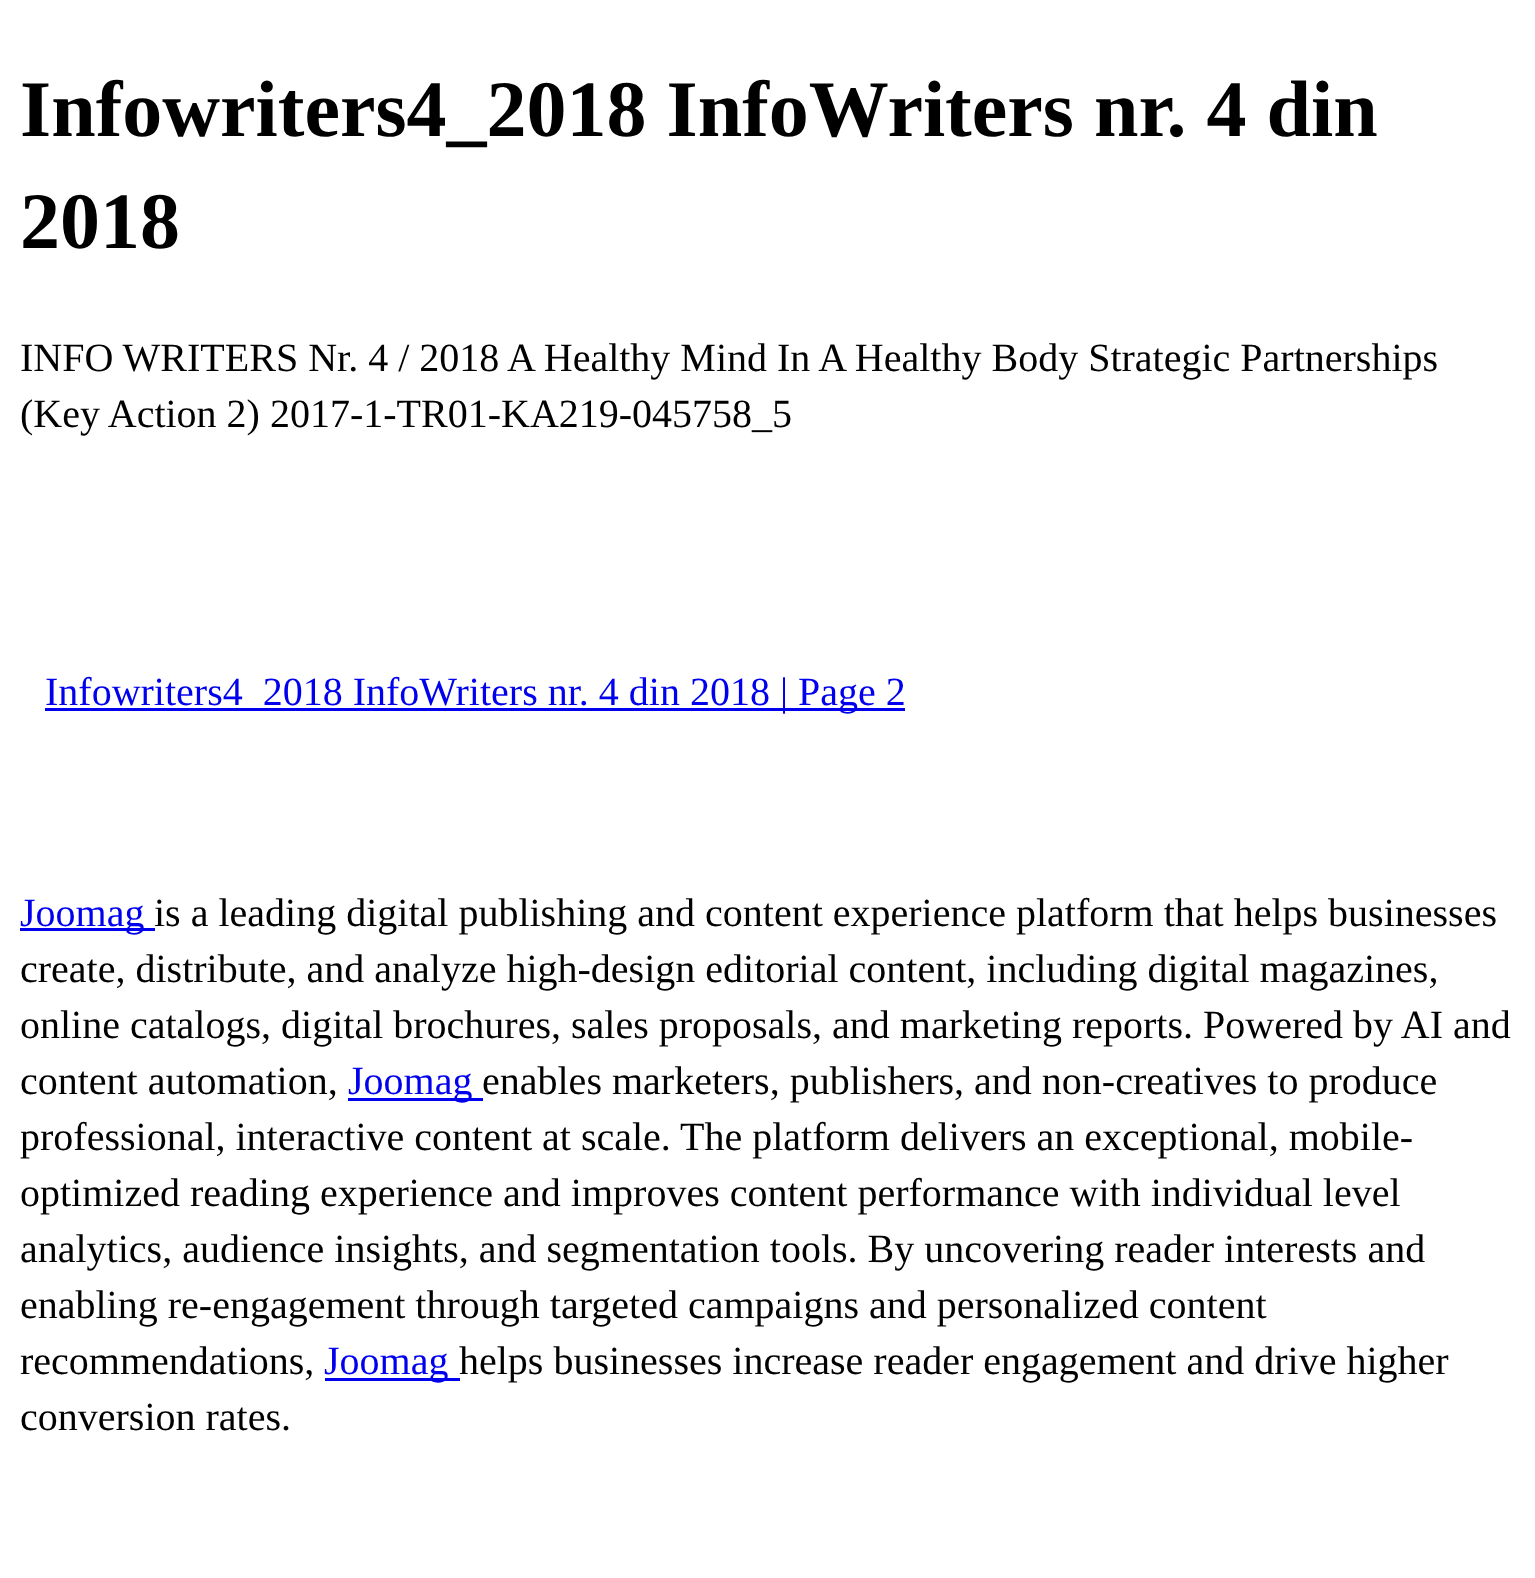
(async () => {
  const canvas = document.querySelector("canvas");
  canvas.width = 1535;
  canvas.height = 1578;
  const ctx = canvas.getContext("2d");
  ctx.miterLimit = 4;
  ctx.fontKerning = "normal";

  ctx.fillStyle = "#ffffff";
  ctx.fillRect(0, 0, 1535, 1578);
  for (const [x, y, w, h, color] of [
    [45, 708, 860, 3, "#0000ee"],
    [20, 928, 135, 3, "#0000ee"],
    [348, 1098, 135, 3, "#0000ee"],
    [325, 1378, 135, 3, "#0000ee"],
  ]) {
    ctx.fillStyle = color;
    ctx.fillRect(x, y, w, h);
  }
  ctx.font = "bold 80px Liberation Serif";
  ctx.fillStyle = "#000000";
  ctx.fillText("Infowriters4_2018 InfoWriters nr. 4 din", 20, 136);
  ctx.fillText("2018", 20, 248);
  ctx.font = "40px Liberation Serif";
  ctx.fillText("INFO WRITERS Nr. 4 / 2018 A Healthy Mind In A Healthy Body Strategic Partnerships", 20, 371);
  ctx.fillText("(Key Action 2) 2017-1-TR01-KA219-045758_5", 20, 427);
  ctx.fillStyle = "#0000ee";
  ctx.fillText("Infowriters4_2018 InfoWriters nr. 4 din 2018 | Page 2", 45, 705);
  ctx.fillText("Joomag", 20, 926);
  ctx.fillStyle = "#000000";
  for (const [text, x, y] of [
    ["is a leading digital publishing and content experience platform that helps businesses", 154, 926],
    ["create, distribute, and analyze high-design editorial content, including digital magazines,", 20, 982],
    ["online catalogs, digital brochures, sales proposals, and marketing reports. Powered by AI and", 20, 1038],
    ["content automation,", 20, 1094],
  ]) {
    ctx.fillText(text, x, y);
  }
  ctx.fillStyle = "#0000ee";
  ctx.fillText("Joomag", 348, 1094);
  ctx.fillStyle = "#000000";
  for (const [text, x, y] of [
    ["enables marketers, publishers, and non-creatives to produce", 482, 1094],
    ["professional, interactive content at scale.", 20, 1150],
    ["The platform delivers an exceptional, mobile-", 680, 1150],
    ["optimized reading experience and improves content performance with individual level", 20, 1206],
    ["analytics, audience insights, and segmentation tools. By uncovering reader interests and", 20, 1262],
    ["enabling re-engagement through targeted campaigns and personalized content", 20, 1318],
    ["recommendations,", 20, 1374],
  ]) {
    ctx.fillText(text, x, y);
  }
  ctx.fillStyle = "#0000ee";
  ctx.fillText("Joomag", 324, 1374);
  ctx.fillStyle = "#000000";
  ctx.fillText("helps businesses increase reader engagement and drive higher", 459, 1374);
  ctx.fillText("conversion rates.", 20, 1430);
})();
